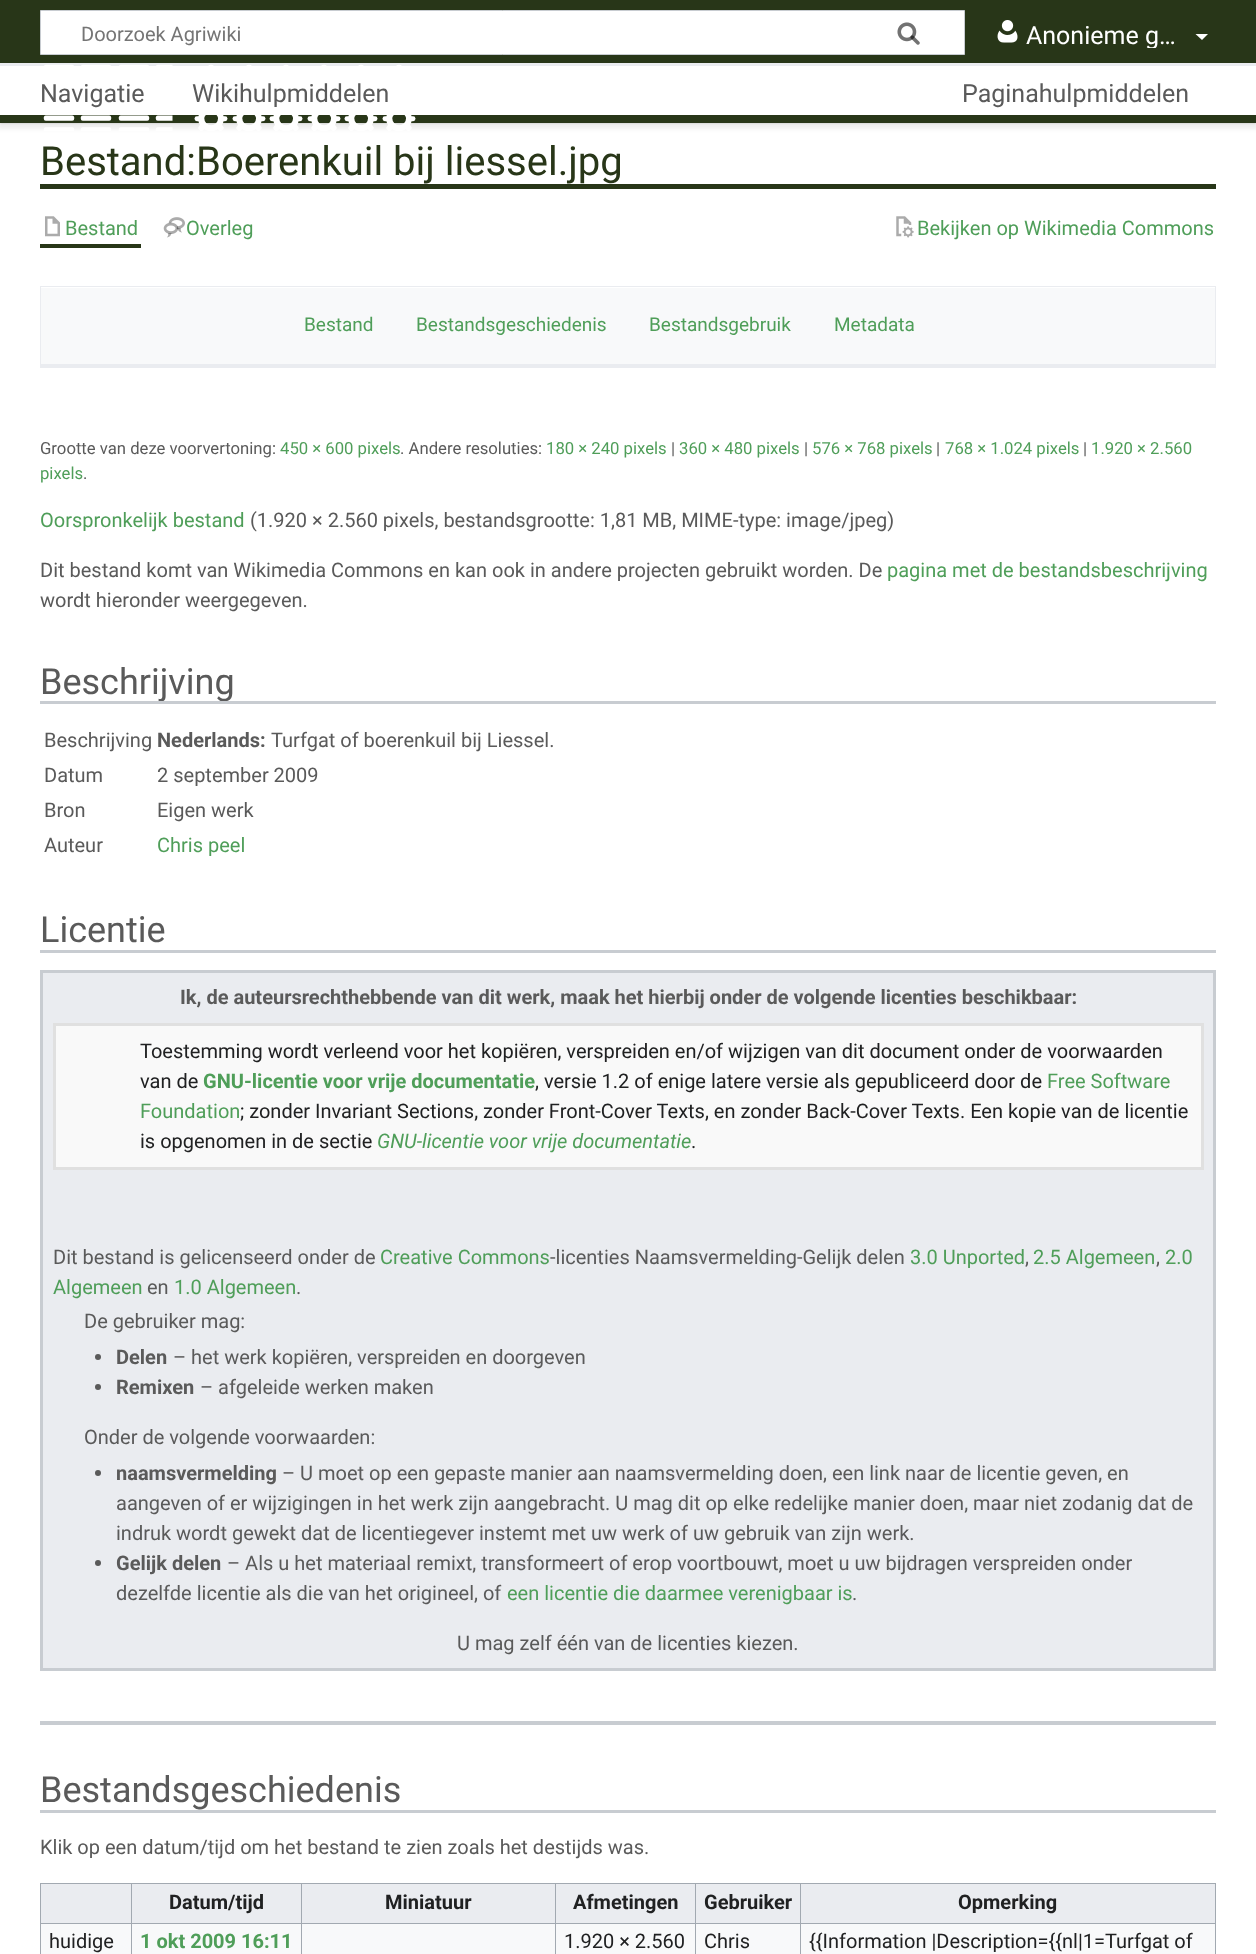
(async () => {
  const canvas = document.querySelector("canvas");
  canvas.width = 1256;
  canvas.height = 1954;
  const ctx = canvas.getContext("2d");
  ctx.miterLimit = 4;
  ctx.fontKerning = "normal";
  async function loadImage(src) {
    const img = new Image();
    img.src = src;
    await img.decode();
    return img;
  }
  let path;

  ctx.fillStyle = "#ffffff";
  ctx.fillRect(0, 0, 1256, 1954);
  ctx.fillStyle = "rgba(0, 0, 0, 0.2)";
  ctx.filter = "blur(1px)";
  ctx.beginPath();
  ctx.rect(0, 63, 1256, 60);
  ctx.fill();
  ctx.filter = "none";
  ctx.fillStyle = "rgba(0, 0, 0, 0.07)";
  ctx.filter = "blur(2px)";
  ctx.beginPath();
  ctx.rect(-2, 64, 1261, 65);
  ctx.fill();
  ctx.filter = "none";
  ctx.fillStyle = "#283618";
  ctx.fillRect(0, 0, 1256, 63);
  ctx.fillStyle = "#ffffff";
  ctx.beginPath();
  ctx.rect(40.5, 10.5, 924, 44);
  ctx.fill();
  ctx.strokeStyle = "#c8ccd1";
  ctx.stroke();
  ctx.drawImage(await loadImage("img/1.png"), 897, 22, 23, 23);
  ctx.drawImage(await loadImage("img/2.png"), 897, 22, 23, 23);
  ctx.drawImage(await loadImage("img/3.png"), 997, 20, 21, 23);
  path = new Path2D("M1208 34L1202 40L1195.5 34Z");
  ctx.fill(path);
  for (const [x, y, w, h, color] of [
    [0, 66, 1256, 49, "#ffffff"],
    [0, 63, 1256, 3, "#eaecf0"],
    [0, 115, 1256, 8, "#283618"],
  ]) {
    ctx.fillStyle = color;
    ctx.fillRect(x, y, w, h);
  }
  ctx.drawImage(await loadImage("img/4.png"), 43, 64, 130, 67);
  ctx.drawImage(await loadImage("img/5.png"), 194, 64, 222, 67);
  ctx.fillRect(40, 184, 1176, 5);
  ctx.fillRect(40, 244, 101, 4);
  ctx.drawImage(await loadImage("img/6.png"), 45, 216, 15, 21);
  ctx.drawImage(await loadImage("img/7.png"), 163, 217, 22, 21);
  ctx.drawImage(await loadImage("img/8.png"), 896, 216, 18, 22);
  for (const [x, y, w, h, color] of [
    [41, 288, 1174, 76, "#f8f9fa"],
    [40, 286, 1176, 1, "#eaecf0"],
    [1215, 286, 1, 82, "#eaecf0"],
    [40, 364, 1176, 4, "#eaecf0"],
    [40, 286, 1, 82, "#eaecf0"],
    [40, 950, 1176, 3, "#c8ccd1"],
  ]) {
    ctx.fillStyle = color;
    ctx.fillRect(x, y, w, h);
  }
  ctx.fillStyle = "#eaecf0";
  ctx.beginPath();
  ctx.rect(41.5, 971.5, 1173, 698);
  ctx.fill();
  ctx.lineWidth = 3;
  ctx.stroke();
  ctx.fillStyle = "#f9f9f9";
  ctx.beginPath();
  ctx.rect(54.5, 1024.5, 1148, 144);
  ctx.fill();
  ctx.strokeStyle = "#e0e0e0";
  ctx.stroke();
  ctx.fillStyle = "#5a5a5a";
  ctx.beginPath();
  ctx.arc(98, 1357, 3, 0, Math.PI * 2);
  ctx.fill();
  ctx.beginPath();
  ctx.arc(98, 1387, 3, 0, Math.PI * 2);
  ctx.fill();
  ctx.beginPath();
  ctx.arc(98, 1473, 3, 0, Math.PI * 2);
  ctx.fill();
  ctx.beginPath();
  ctx.arc(98, 1563, 3, 0, Math.PI * 2);
  ctx.fill();
  for (const [x, y, w, h, color] of [
    [40, 1721, 1176, 4, "#c8ccd1"],
    [40, 1810, 1176, 3, "#c8ccd1"],
    [41, 1924, 1174, 30, "#f8f9fa"],
    [40, 1883, 1176, 1, "#a2a9b1"],
    [1215, 1883, 1, 71, "#a2a9b1"],
    [40, 1883, 1, 71, "#a2a9b1"],
    [41, 1884, 90, 39, "#eaecf0"],
    [132, 1884, 169, 39, "#eaecf0"],
    [800, 1923, 416, 1, "#a2a9b1"],
    [800, 1923, 1, 31, "#a2a9b1"],
    [695, 1923, 106, 1, "#a2a9b1"],
    [695, 1923, 1, 31, "#a2a9b1"],
    [555, 1923, 141, 1, "#a2a9b1"],
    [555, 1923, 1, 31, "#a2a9b1"],
    [301, 1923, 255, 1, "#a2a9b1"],
    [301, 1923, 1, 31, "#a2a9b1"],
    [131, 1923, 172, 1, "#a2a9b1"],
    [131, 1923, 1, 31, "#a2a9b1"],
    [40, 1923, 93, 1, "#a2a9b1"],
    [131, 1883, 1, 41, "#a2a9b1"],
    [302, 1884, 253, 39, "#eaecf0"],
    [301, 1883, 1, 41, "#a2a9b1"],
    [556, 1884, 139, 39, "#eaecf0"],
    [555, 1883, 1, 41, "#a2a9b1"],
    [696, 1884, 104, 39, "#eaecf0"],
    [695, 1883, 1, 41, "#a2a9b1"],
    [801, 1884, 414, 39, "#eaecf0"],
    [800, 1883, 1, 41, "#a2a9b1"],
  ]) {
    ctx.fillStyle = color;
    ctx.fillRect(x, y, w, h);
  }
  ctx.font = "20px Roboto";
  ctx.fillStyle = "#757575";
  ctx.fillText("Doorzoek Agriwiki", 81, 41);
  ctx.save();
  ctx.beginPath();
  ctx.rect(1026, 23, 163, 25);
  ctx.clip();
  ctx.font = "25px Roboto";
  ctx.fillStyle = "#ffffff";
  ctx.fillText("Anonieme g…", 1026, 44);
  ctx.restore();
  ctx.font = "25px Roboto";
  ctx.fillStyle = "#5a5a5a";
  for (const [text, x, y] of [
    ["Navigatie", 40, 102],
    ["Wikihulpmiddelen", 192, 102],
    ["Paginahulpmiddelen", 962, 102],
  ]) {
    ctx.fillText(text, x, y);
  }
  ctx.font = "40px Roboto";
  ctx.fillStyle = "#283618";
  ctx.fillText("Bestand:Boerenkuil bij liessel.jpg", 40, 175);
  ctx.font = "20px Roboto";
  ctx.fillStyle = "#4f9e59";
  for (const [text, x, y] of [
    ["Bestand", 65, 235],
    ["Overleg", 186, 235],
    ["Bekijken op Wikimedia Commons", 917, 235],
  ]) {
    ctx.fillText(text, x, y);
  }
  ctx.font = "19px Roboto";
  for (const [text, x, y] of [
    ["Bestand", 304, 331],
    ["Bestandsgeschiedenis", 416, 331],
    ["Bestandsgebruik", 649, 331],
    ["Metadata", 834, 331],
  ]) {
    ctx.fillText(text, x, y);
  }
  ctx.font = "16.7px Roboto";
  ctx.fillStyle = "#5a5a5a";
  ctx.fillText("Grootte van deze voorvertoning:", 40, 454);
  ctx.fillStyle = "#4f9e59";
  ctx.fillText("450 × 600 pixels", 280, 454);
  ctx.fillStyle = "#5a5a5a";
  ctx.fillText(". Andere resoluties:", 400, 454);
  ctx.fillStyle = "#4f9e59";
  ctx.fillText("180 × 240 pixels", 546, 454);
  ctx.fillStyle = "#5a5a5a";
  ctx.fillText("|", 671, 454);
  ctx.fillStyle = "#4f9e59";
  ctx.fillText("360 × 480 pixels", 679, 454);
  ctx.fillStyle = "#5a5a5a";
  ctx.fillText("|", 804, 454);
  ctx.fillStyle = "#4f9e59";
  ctx.fillText("576 × 768 pixels", 812, 454);
  ctx.fillStyle = "#5a5a5a";
  ctx.fillText("|", 936, 454);
  ctx.fillStyle = "#4f9e59";
  ctx.fillText("768 × 1.024 pixels", 945, 454);
  ctx.fillStyle = "#5a5a5a";
  ctx.fillText("|", 1083, 454);
  ctx.fillStyle = "#4f9e59";
  ctx.fillText("1.920 × 2.560", 1091, 454);
  ctx.fillText("pixels", 40, 479);
  ctx.fillStyle = "#5a5a5a";
  ctx.fillText(".", 83, 479);
  ctx.font = "20px Roboto";
  ctx.fillStyle = "#4f9e59";
  ctx.fillText("Oorspronkelijk bestand", 40, 527);
  ctx.fillStyle = "#5a5a5a";
  ctx.fillText("(1.920 × 2.560 pixels, bestandsgrootte: 1,81 MB, MIME-type: image/jpeg)", 250, 527);
  ctx.fillText("Dit bestand komt van Wikimedia Commons en kan ook in andere projecten gebruikt worden. De", 40, 577);
  ctx.fillStyle = "#4f9e59";
  ctx.fillText("pagina met de bestandsbeschrijving", 887, 577);
  ctx.fillStyle = "#5a5a5a";
  ctx.fillText("wordt hieronder weergegeven.", 40, 607);
  ctx.font = "36px Roboto";
  ctx.fillText("Beschrijving", 40, 694);
  ctx.fillStyle = "#c8ccd1";
  ctx.fillRect(40, 701, 1176, 3);
  ctx.font = "20px Roboto";
  ctx.fillStyle = "#5a5a5a";
  ctx.fillText("Beschrijving", 44, 747);
  ctx.font = "bold 20px Roboto";
  ctx.fillText("Nederlands:", 157, 747);
  ctx.font = "20px Roboto";
  for (const [text, x, y] of [
    ["Turfgat of boerenkuil bij Liessel.", 271, 747],
    ["Datum", 44, 782],
    ["2 september 2009", 157, 782],
    ["Bron", 44, 817],
    ["Eigen werk", 157, 817],
    ["Auteur", 44, 852],
  ]) {
    ctx.fillText(text, x, y);
  }
  ctx.fillStyle = "#4f9e59";
  ctx.fillText("Chris peel", 157, 852);
  ctx.font = "36px Roboto";
  ctx.fillStyle = "#5a5a5a";
  ctx.fillText("Licentie", 40, 942);
  ctx.font = "bold 20px Roboto";
  ctx.fillText("Ik, de auteursrechthebbende van dit werk, maak het hierbij onder de volgende licenties beschikbaar:", 180, 1004);
  ctx.font = "20px Roboto";
  ctx.fillStyle = "#202122";
  ctx.fillText("Toestemming wordt verleend voor het kopiëren, verspreiden en/of wijzigen van dit document onder de voorwaarden", 140, 1058);
  ctx.fillText("van de", 140, 1088);
  ctx.font = "bold 20px Roboto";
  ctx.fillStyle = "#4f9e59";
  ctx.fillText("GNU-licentie voor vrije documentatie", 203, 1088);
  ctx.font = "20px Roboto";
  ctx.fillStyle = "#202122";
  ctx.fillText(", versie 1.2 of enige latere versie als gepubliceerd door de", 535, 1088);
  ctx.fillStyle = "#4f9e59";
  ctx.fillText("Free Software", 1047, 1088);
  ctx.fillText("Foundation", 140, 1118);
  ctx.fillStyle = "#202122";
  ctx.fillText("; zonder Invariant Sections, zonder Front-Cover Texts, en zonder Back-Cover Texts. Een kopie van de licentie", 240, 1118);
  ctx.fillText("is opgenomen in de sectie", 140, 1148);
  ctx.font = "italic 20px Roboto";
  ctx.fillStyle = "#4f9e59";
  ctx.fillText("GNU-licentie voor vrije documentatie", 377, 1148);
  ctx.font = "20px Roboto";
  ctx.fillStyle = "#202122";
  ctx.fillText(".", 691, 1148);
  ctx.fillStyle = "#5a5a5a";
  ctx.fillText("Dit bestand is gelicenseerd onder de", 53, 1264);
  ctx.fillStyle = "#4f9e59";
  ctx.fillText("Creative Commons", 380, 1264);
  ctx.fillStyle = "#5a5a5a";
  ctx.fillText("-licenties Naamsvermelding-Gelijk delen", 550, 1264);
  ctx.fillStyle = "#4f9e59";
  ctx.fillText("3.0 Unported", 910, 1264);
  ctx.fillStyle = "#5a5a5a";
  ctx.fillText(",", 1025, 1264);
  ctx.fillStyle = "#4f9e59";
  ctx.fillText("2.5 Algemeen", 1033, 1264);
  ctx.fillStyle = "#5a5a5a";
  ctx.fillText(",", 1156, 1264);
  ctx.fillStyle = "#4f9e59";
  ctx.fillText("2.0", 1165, 1264);
  ctx.fillText("Algemeen", 53, 1294);
  ctx.fillStyle = "#5a5a5a";
  ctx.fillText("en", 147, 1294);
  ctx.fillStyle = "#4f9e59";
  ctx.fillText("1.0 Algemeen", 174, 1294);
  ctx.fillStyle = "#5a5a5a";
  ctx.fillText(".", 296, 1294);
  ctx.fillText("De gebruiker mag:", 84, 1328);
  ctx.font = "bold 20px Roboto";
  ctx.fillText("Delen", 116, 1364);
  ctx.font = "20px Roboto";
  ctx.fillText("– het werk kopiëren, verspreiden en doorgeven", 173, 1364);
  ctx.font = "bold 20px Roboto";
  ctx.fillText("Remixen", 116, 1394);
  ctx.font = "20px Roboto";
  ctx.fillText("– afgeleide werken maken", 200, 1394);
  ctx.fillText("Onder de volgende voorwaarden:", 84, 1444);
  ctx.font = "bold 20px Roboto";
  ctx.fillText("naamsvermelding", 116, 1480);
  ctx.font = "20px Roboto";
  for (const [text, x, y] of [
    ["– U moet op een gepaste manier aan naamsvermelding doen, een link naar de licentie geven, en", 282, 1480],
    ["aangeven of er wijzigingen in het werk zijn aangebracht. U mag dit op elke redelijke manier doen, maar niet zodanig dat de", 116, 1510],
    ["indruk wordt gewekt dat de licentiegever instemt met uw werk of uw gebruik van zijn werk.", 116, 1540],
  ]) {
    ctx.fillText(text, x, y);
  }
  ctx.font = "bold 20px Roboto";
  ctx.fillText("Gelijk delen", 116, 1570);
  ctx.font = "20px Roboto";
  ctx.fillText("– Als u het materiaal remixt, transformeert of erop voortbouwt, moet u uw bijdragen verspreiden onder", 227, 1570);
  ctx.fillText("dezelfde licentie als die van het origineel, of", 116, 1600);
  ctx.fillStyle = "#4f9e59";
  ctx.fillText("een licentie die daarmee verenigbaar is", 507, 1600);
  ctx.fillStyle = "#5a5a5a";
  ctx.fillText(".", 852, 1600);
  ctx.fillText("U mag zelf één van de licenties kiezen.", 457, 1650);
  ctx.font = "36px Roboto";
  ctx.fillText("Bestandsgeschiedenis", 40, 1802);
  ctx.font = "20px Roboto";
  ctx.fillText("Klik op een datum/tijd om het bestand te zien zoals het destijds was.", 40, 1854);
  ctx.font = "bold 20px Roboto";
  ctx.fillStyle = "#202122";
  for (const [text, x, y] of [
    ["Datum/tijd", 169, 1909],
    ["Miniatuur", 385, 1909],
    ["Afmetingen", 573, 1909],
    ["Gebruiker", 704, 1909],
    ["Opmerking", 958, 1909],
  ]) {
    ctx.fillText(text, x, y);
  }
  ctx.font = "20px Roboto";
  ctx.fillText("huidige", 49, 1948);
  ctx.font = "bold 20px Roboto";
  ctx.fillStyle = "#4f9e59";
  ctx.fillText("1 okt 2009 16:11", 140, 1948);
  ctx.font = "20px Roboto";
  ctx.fillStyle = "#202122";
  for (const [text, x, y] of [
    ["1.920 × 2.560", 564, 1948],
    ["Chris", 704, 1948],
    ["{{Information |Description={{nl|1=Turfgat of", 809, 1948],
  ]) {
    ctx.fillText(text, x, y);
  }
})();
